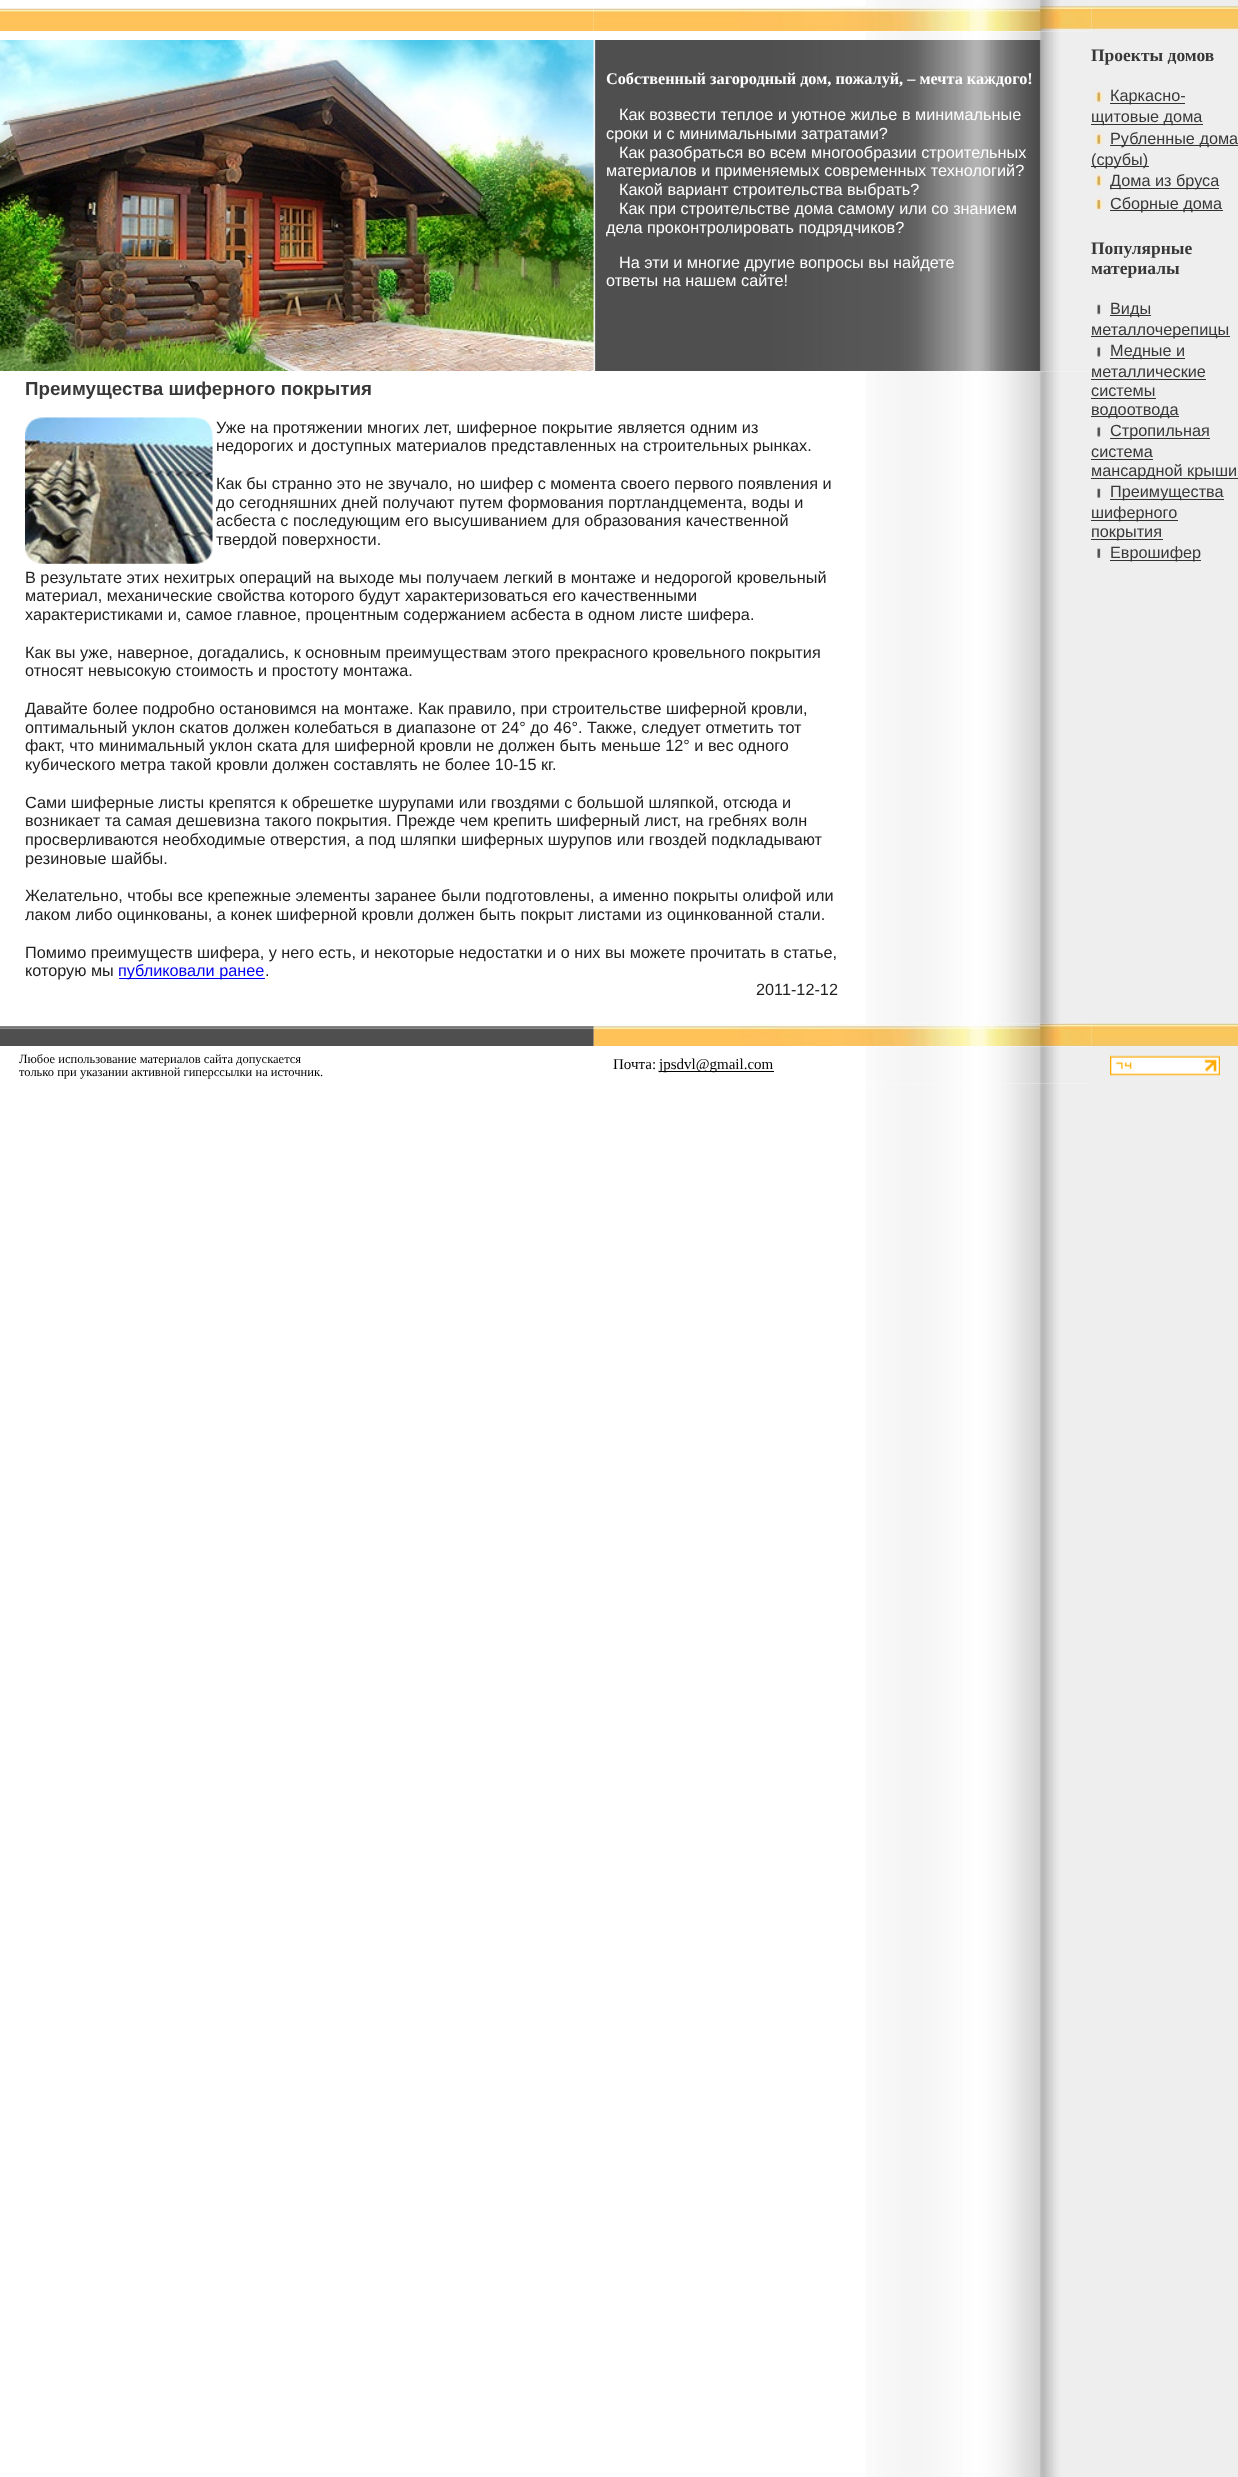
(async () => {
  const canvas = document.querySelector("canvas");
  canvas.width = 1238;
  canvas.height = 2477;
  const ctx = canvas.getContext("2d");
  ctx.miterLimit = 4;
  ctx.fontKerning = "normal";
  async function loadImage(src) {
    const img = new Image();
    img.src = src;
    await img.decode();
    return img;
  }

  ctx.fillStyle = "#ffffff";
  ctx.fillRect(0, 0, 1238, 2477);
  ctx.drawImage(await loadImage("img/1.png"), 866, 0, 372, 2477);
  ctx.drawImage(await loadImage("img/2.png"), 866, 0, 225, 6);
  ctx.drawImage(await loadImage("img/3.png"), 0, 8, 594, 23);
  ctx.drawImage(await loadImage("img/4.png"), 593, 6, 499, 26);
  ctx.fillStyle = "#eeeeee";
  ctx.fillRect(1091, 6, 1, 24);
  ctx.drawImage(await loadImage("img/5.png"), 1091, 6, 147, 25);
  ctx.fillStyle = "#ffffff";
  ctx.fillRect(593, 31, 1, 1);
  ctx.fillRect(594, 31, 497, 9);
  ctx.drawImage(await loadImage("img/6.png"), 866, 31, 225, 9);
  ctx.drawImage(await loadImage("img/7.png"), 0, 40, 594, 331);
  ctx.drawImage(await loadImage("img/8.png"), 593, 40, 451, 331);
  ctx.drawImage(await loadImage("img/9.png"), 1091, 87, 13, 19);
  ctx.fillStyle = "#333333";
  ctx.fillRect(1110, 103, 75, 1);
  ctx.fillRect(1091, 124, 112, 1);
  ctx.drawImage(await loadImage("img/10.png"), 1091, 129, 13, 20);
  ctx.fillRect(1110, 145, 128, 1);
  ctx.fillRect(1091, 166, 58, 1);
  ctx.drawImage(await loadImage("img/11.png"), 1091, 170, 13, 20);
  ctx.fillRect(1110, 188, 109, 1);
  ctx.drawImage(await loadImage("img/12.png"), 1091, 194, 13, 16);
  ctx.fillRect(1110, 210, 113, 1);
  ctx.drawImage(await loadImage("img/13.png"), 1097, 304, 4, 11);
  ctx.fillRect(1110, 315, 41, 1);
  ctx.fillRect(1091, 336, 139, 1);
  ctx.drawImage(await loadImage("img/14.png"), 1097, 346, 4, 11);
  for (const [x, y, w, h, color] of [
    [1110, 358, 75, 1, "#333333"],
    [1091, 379, 115, 1, "#333333"],
    [1091, 398, 65, 1, "#333333"],
    [1091, 416, 88, 1, "#333333"],
  ]) {
    ctx.fillStyle = color;
    ctx.fillRect(x, y, w, h);
  }
  ctx.drawImage(await loadImage("img/15.png"), 1097, 426, 4, 11);
  for (const [x, y, w, h, color] of [
    [1110, 438, 100, 1, "#333333"],
    [1091, 459, 62, 1, "#333333"],
    [1091, 478, 147, 1, "#333333"],
  ]) {
    ctx.fillStyle = color;
    ctx.fillRect(x, y, w, h);
  }
  ctx.drawImage(await loadImage("img/16.png"), 1097, 488, 4, 10);
  for (const [x, y, w, h, color] of [
    [1110, 499, 114, 1, "#333333"],
    [1091, 520, 87, 1, "#333333"],
    [1091, 539, 72, 1, "#333333"],
  ]) {
    ctx.fillStyle = color;
    ctx.fillRect(x, y, w, h);
  }
  ctx.drawImage(await loadImage("img/17.png"), 1097, 548, 4, 10);
  ctx.fillRect(1110, 560, 91, 1);
  ctx.fillStyle = "#ffffff";
  ctx.fillRect(866, 371, 225, 653);
  ctx.drawImage(await loadImage("img/18.png"), 866, 371, 225, 653);
  ctx.drawImage(await loadImage("img/19.png"), 25, 417, 188, 147);
  ctx.fillStyle = "#0000ee";
  ctx.fillRect(119, 978, 146, 1);
  ctx.drawImage(await loadImage("img/20.png"), 0, 1026, 594, 20);
  ctx.drawImage(await loadImage("img/21.png"), 593, 1023, 499, 23);
  ctx.drawImage(await loadImage("img/22.png"), 1091, 1023, 147, 23);
  ctx.fillStyle = "#ffffff";
  ctx.fillRect(866, 1046, 225, 38);
  ctx.drawImage(await loadImage("img/23.png"), 866, 1046, 225, 38);
  ctx.fillStyle = "#000000";
  ctx.fillRect(659, 1071, 115, 1);
  ctx.drawImage(await loadImage("img/24.png"), 1110, 1055, 110, 21);
  ctx.font = "bold 16.25px Liberation Serif";
  ctx.fillStyle = "#ffffff";
  ctx.fillText("Собственный загородный дом, пожалуй, – мечта каждого!", 606, 84);
  ctx.font = "16.25px Liberation Sans";
  for (const [text, x, y] of [
    ["Как возвести теплое и уютное жилье в минимальные", 619, 120],
    ["сроки и с минимальными затратами?", 606, 139],
    ["Как разобраться во всем многообразии строительных", 619, 158],
    ["материалов и применяемых современных технологий?", 606, 176],
    ["Какой вариант строительства выбрать?", 619, 195],
    ["Как при строительстве дома самому или со знанием", 619, 214],
    ["дела проконтролировать подрядчиков?", 606, 233],
    ["На эти и многие другие вопросы вы найдете", 619, 268],
    ["ответы на нашем сайте!", 606, 286],
  ]) {
    ctx.fillText(text, x, y);
  }
  ctx.font = "bold 17.5px Liberation Serif";
  ctx.fillStyle = "#383838";
  ctx.fillText("Проекты домов", 1091, 61);
  ctx.font = "16.25px Liberation Sans";
  for (const [text, x, y] of [
    ["Каркасно-", 1110, 101],
    ["щитовые дома", 1091, 122],
    ["Рубленные дома", 1110, 144],
    ["(срубы)", 1091, 165],
    ["Дома из бруса", 1110, 186],
    ["Сборные дома", 1110, 209],
  ]) {
    ctx.fillText(text, x, y);
  }
  ctx.font = "bold 17.5px Liberation Serif";
  ctx.fillText("Популярные", 1091, 254);
  ctx.fillText("материалы", 1091, 274);
  ctx.font = "16.25px Liberation Sans";
  for (const [text, x, y] of [
    ["Виды", 1110, 314],
    ["металлочерепицы", 1091, 335],
    ["Медные и", 1110, 356],
    ["металлические", 1091, 377],
    ["системы", 1091, 396],
    ["водоотвода", 1091, 415],
    ["Стропильная", 1110, 436],
    ["система", 1091, 457],
    ["мансардной крыши", 1091, 476],
    ["Преимущества", 1110, 497],
    ["шиферного", 1091, 518],
    ["покрытия", 1091, 537],
    ["Еврошифер", 1110, 558],
  ]) {
    ctx.fillText(text, x, y);
  }
  ctx.font = "bold 18.75px Liberation Sans";
  ctx.fillText("Преимущества шиферного покрытия", 25, 395);
  ctx.font = "16.25px Liberation Sans";
  ctx.fillStyle = "#212121";
  for (const [text, x, y] of [
    ["Уже на протяжении многих лет, шиферное покрытие является одним из", 216, 433],
    ["недорогих и доступных материалов представленных на строительных рынках.", 216, 451],
    ["Как бы странно это не звучало, но шифер с момента своего первого появления и", 216, 489],
    ["до сегодняшних дней получают путем формования портландцемента, воды и", 216, 508],
    ["асбеста с последующим его высушиванием для образования качественной", 216, 526],
    ["твердой поверхности.", 216, 545],
    ["В результате этих нехитрых операций на выходе мы получаем легкий в монтаже и недорогой кровельный", 25, 583],
    ["материал, механические свойства которого будут характеризоваться его качественными", 25, 601],
    ["характеристиками и, самое главное, процентным содержанием асбеста в одном листе шифера.", 25, 620],
    ["Как вы уже, наверное, догадались, к основным преимуществам этого прекрасного кровельного покрытия", 25, 658],
    ["относят невысокую стоимость и простоту монтажа.", 25, 676],
    ["Давайте более подробно остановимся на монтаже. Как правило, при строительстве шиферной кровли,", 25, 714],
    ["оптимальный уклон скатов должен колебаться в диапазоне от 24° до 46°. Также, следует отметить тот", 25, 733],
    ["факт, что минимальный уклон ската для шиферной кровли не должен быть меньше 12° и вес одного", 25, 751],
    ["кубического метра такой кровли должен составлять не более 10-15 кг.", 25, 770],
    ["Сами шиферные листы крепятся к обрешетке шурупами или гвоздями с большой шляпкой, отсюда и", 25, 808],
    ["возникает та самая дешевизна такого покрытия. Прежде чем крепить шиферный лист, на гребнях волн", 25, 826],
    ["просверливаются необходимые отверстия, а под шляпки шиферных шурупов или гвоздей подкладывают", 25, 845],
    ["резиновые шайбы.", 25, 864],
    ["Желательно, чтобы все крепежные элементы заранее были подготовлены, а именно покрыты олифой или", 25, 901],
    ["лаком либо оцинкованы, а конек шиферной кровли должен быть покрыт листами из оцинкованной стали.", 25, 920],
    ["Помимо преимуществ шифера, у него есть, и некоторые недостатки и о них вы можете прочитать в статье,", 25, 958],
    ["которую мы", 25, 976],
  ]) {
    ctx.fillText(text, x, y);
  }
  ctx.fillStyle = "#0000ee";
  ctx.fillText("публиковали ранее", 118, 976);
  ctx.fillStyle = "#212121";
  ctx.fillText(".", 265, 976);
  ctx.fillText("2011-12-12", 756, 995);
  ctx.font = "12.5px Liberation Serif";
  ctx.fillStyle = "#000000";
  ctx.fillText("Любое использование материалов сайта допускается", 19, 1063);
  ctx.fillText("только при указании активной гиперссылки на источник.", 19, 1076);
  ctx.font = "15px Liberation Serif";
  ctx.fillText("Почта:", 613, 1069);
  ctx.fillText("jpsdvl@gmail.com", 659, 1069);
})();
